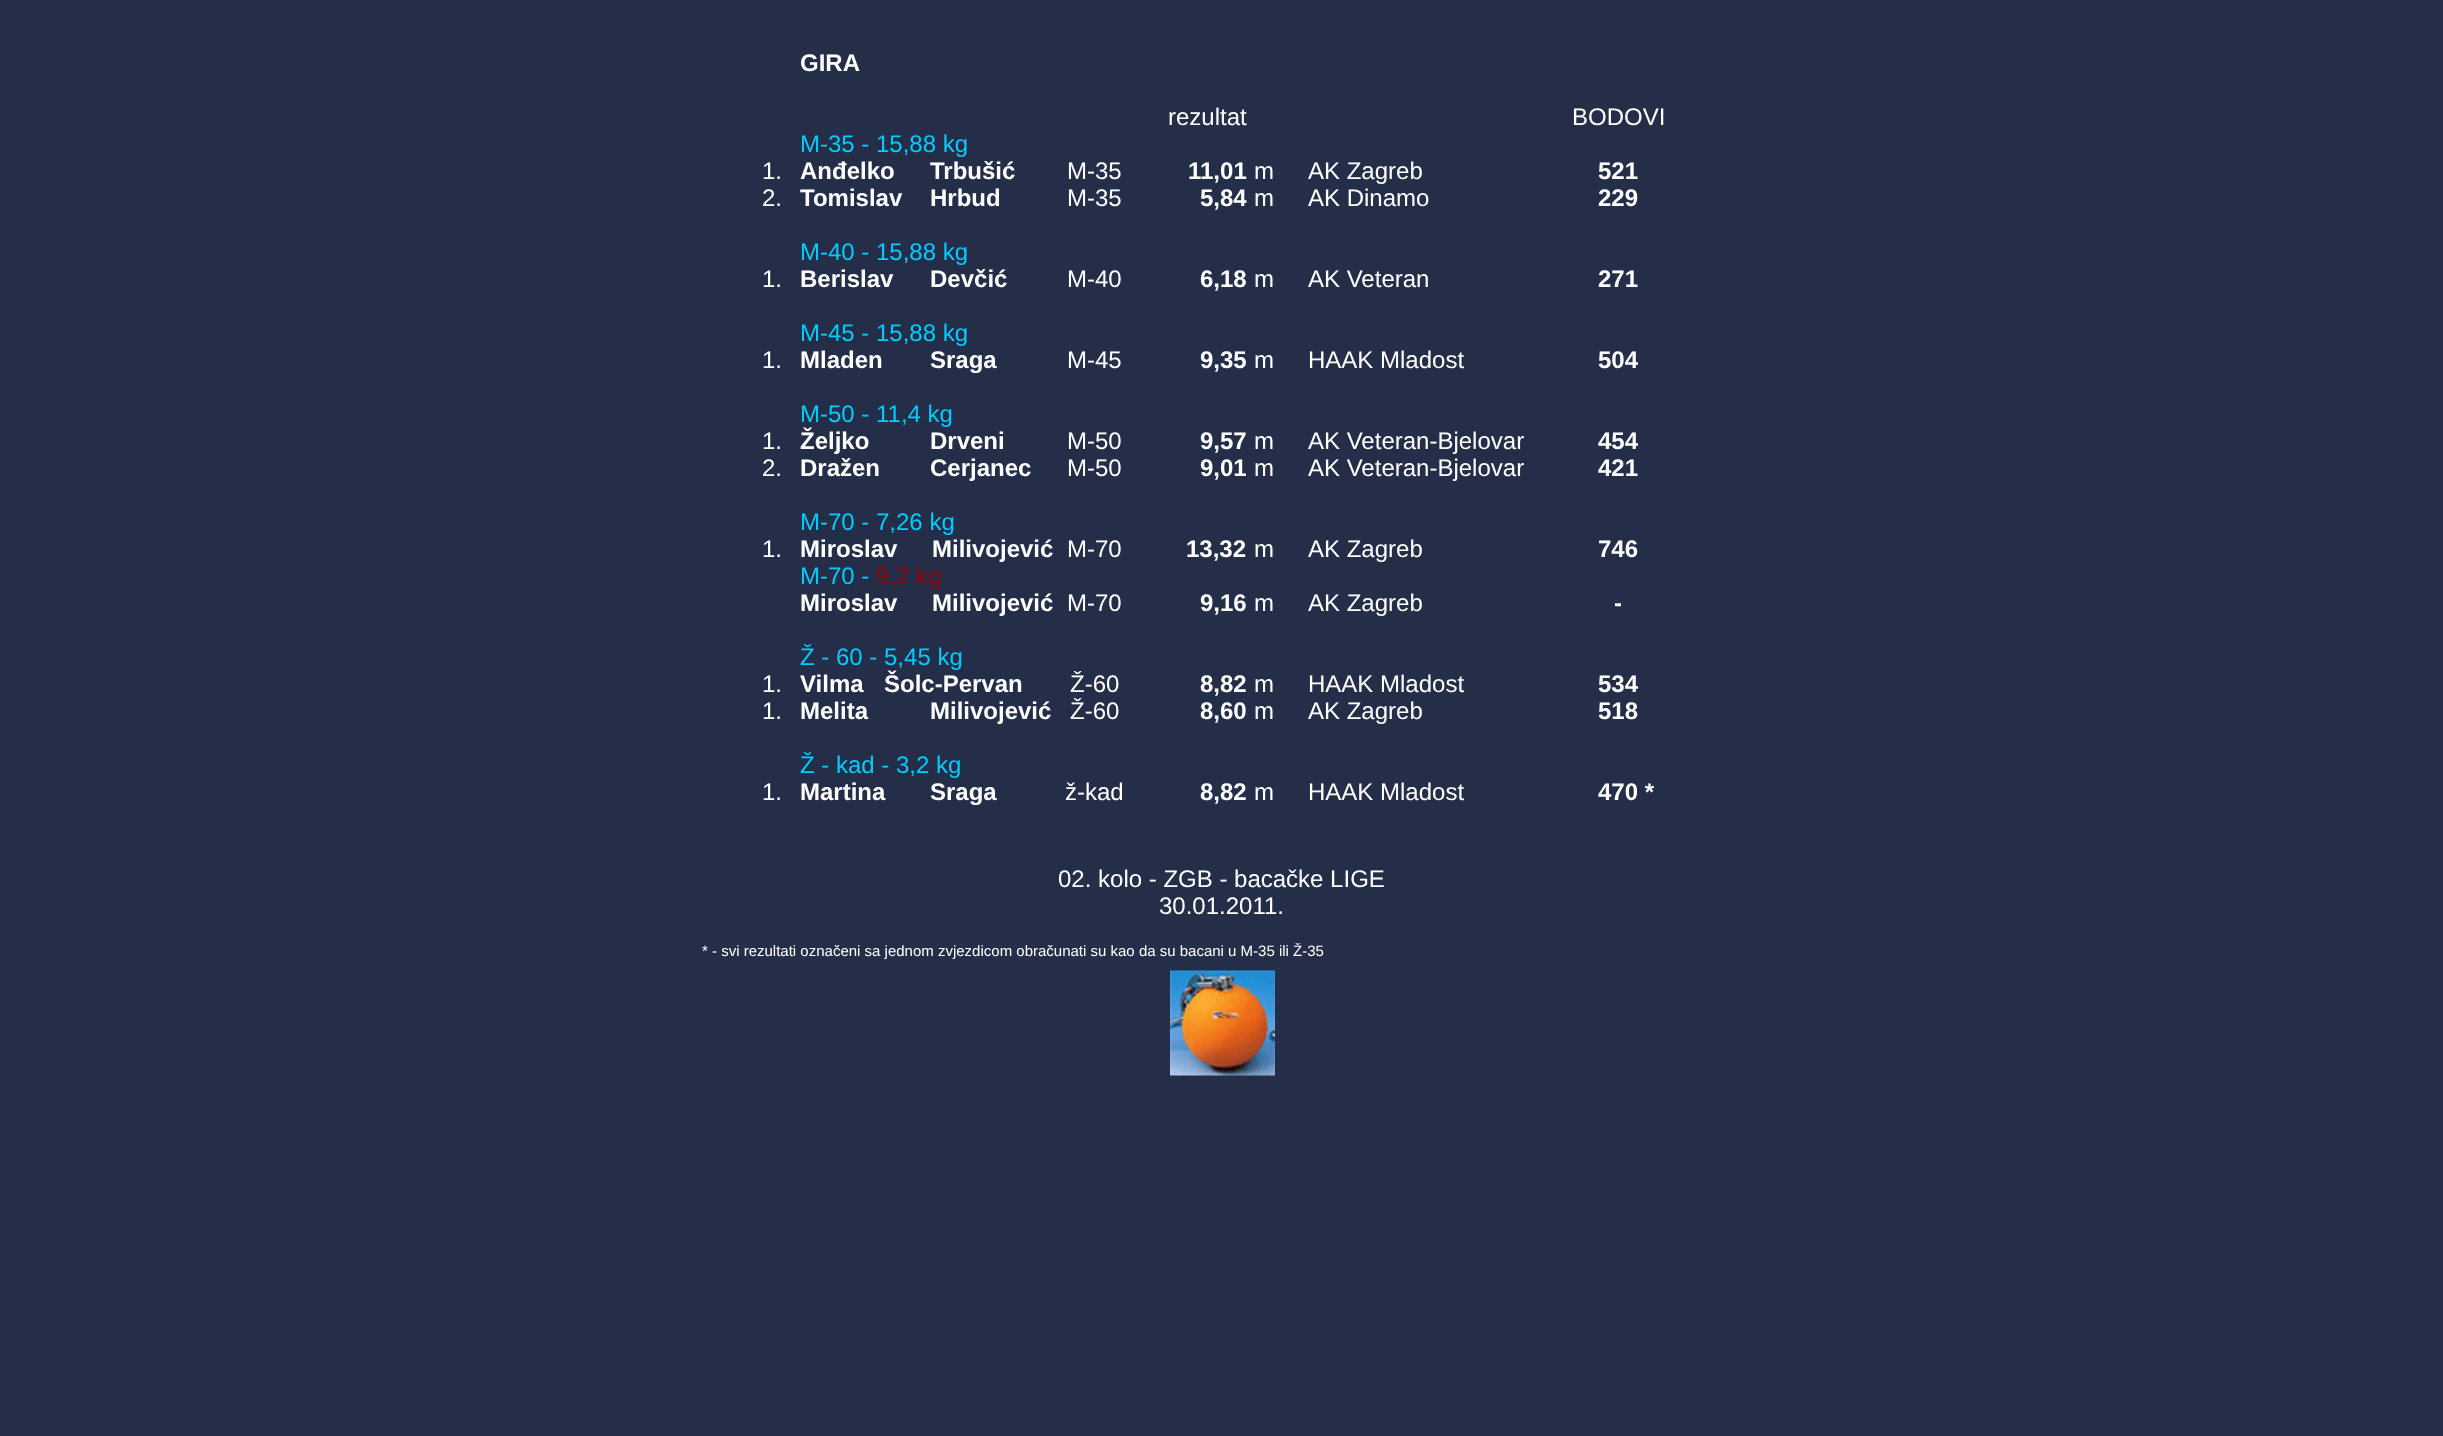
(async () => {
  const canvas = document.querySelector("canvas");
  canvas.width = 2443;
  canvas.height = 1436;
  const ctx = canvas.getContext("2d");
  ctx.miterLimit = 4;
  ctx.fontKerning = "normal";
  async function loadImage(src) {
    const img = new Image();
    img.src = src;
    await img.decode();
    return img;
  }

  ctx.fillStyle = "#242e49";
  ctx.fillRect(0, 0, 2443, 1436);
  ctx.drawImage(await loadImage("img/1.png"), 1170, 970, 105, 106);
  ctx.font = "bold 24px Liberation Sans";
  ctx.fillStyle = "#ffffff";
  ctx.fillText("GIRA", 800, 71);
  ctx.font = "24px Liberation Sans";
  ctx.fillText("rezultat", 1168, 125);
  ctx.fillText("BODOVI", 1572, 125);
  ctx.fillStyle = "#00ccff";
  ctx.fillText("M-35 - 15,88 kg", 800, 152);
  ctx.fillStyle = "#ffffff";
  ctx.fillText("1.", 762, 179);
  ctx.font = "bold 24px Liberation Sans";
  ctx.fillText("Anđelko", 800, 179);
  ctx.fillText("Trbušić", 930, 179);
  ctx.font = "24px Liberation Sans";
  ctx.fillText("M-35", 1067, 179);
  ctx.font = "bold 24px Liberation Sans";
  ctx.fillText("11,01", 1188, 179);
  ctx.font = "24px Liberation Sans";
  ctx.fillText("m", 1254, 179);
  ctx.fillText("AK Zagreb", 1308, 179);
  ctx.font = "bold 24px Liberation Sans";
  ctx.fillText("521", 1598, 179);
  ctx.font = "24px Liberation Sans";
  ctx.fillText("2.", 762, 206);
  ctx.font = "bold 24px Liberation Sans";
  ctx.fillText("Tomislav", 800, 206);
  ctx.fillText("Hrbud", 930, 206);
  ctx.font = "24px Liberation Sans";
  ctx.fillText("M-35", 1067, 206);
  ctx.font = "bold 24px Liberation Sans";
  ctx.fillText("5,84", 1200, 206);
  ctx.font = "24px Liberation Sans";
  ctx.fillText("m", 1254, 206);
  ctx.fillText("AK Dinamo", 1308, 206);
  ctx.font = "bold 24px Liberation Sans";
  ctx.fillText("229", 1598, 206);
  ctx.font = "24px Liberation Sans";
  ctx.fillStyle = "#00ccff";
  ctx.fillText("M-40 - 15,88 kg", 800, 260);
  ctx.fillStyle = "#ffffff";
  ctx.fillText("1.", 762, 287);
  ctx.font = "bold 24px Liberation Sans";
  ctx.fillText("Berislav", 800, 287);
  ctx.fillText("Devčić", 930, 287);
  ctx.font = "24px Liberation Sans";
  ctx.fillText("M-40", 1067, 287);
  ctx.font = "bold 24px Liberation Sans";
  ctx.fillText("6,18", 1200, 287);
  ctx.font = "24px Liberation Sans";
  ctx.fillText("m", 1254, 287);
  ctx.fillText("AK Veteran", 1308, 287);
  ctx.font = "bold 24px Liberation Sans";
  ctx.fillText("271", 1598, 287);
  ctx.font = "24px Liberation Sans";
  ctx.fillStyle = "#00ccff";
  ctx.fillText("M-45 - 15,88 kg", 800, 341);
  ctx.fillStyle = "#ffffff";
  ctx.fillText("1.", 762, 368);
  ctx.font = "bold 24px Liberation Sans";
  ctx.fillText("Mladen", 800, 368);
  ctx.fillText("Sraga", 930, 368);
  ctx.font = "24px Liberation Sans";
  ctx.fillText("M-45", 1067, 368);
  ctx.font = "bold 24px Liberation Sans";
  ctx.fillText("9,35", 1200, 368);
  ctx.font = "24px Liberation Sans";
  ctx.fillText("m", 1254, 368);
  ctx.fillText("HAAK Mladost", 1308, 368);
  ctx.font = "bold 24px Liberation Sans";
  ctx.fillText("504", 1598, 368);
  ctx.font = "24px Liberation Sans";
  ctx.fillStyle = "#00ccff";
  ctx.fillText("M-50 - 11,4 kg", 800, 422);
  ctx.fillStyle = "#ffffff";
  ctx.fillText("1.", 762, 449);
  ctx.font = "bold 24px Liberation Sans";
  ctx.fillText("Željko", 800, 449);
  ctx.fillText("Drveni", 930, 449);
  ctx.font = "24px Liberation Sans";
  ctx.fillText("M-50", 1067, 449);
  ctx.font = "bold 24px Liberation Sans";
  ctx.fillText("9,57", 1200, 449);
  ctx.font = "24px Liberation Sans";
  ctx.fillText("m", 1254, 449);
  ctx.fillText("AK Veteran-Bjelovar", 1308, 449);
  ctx.font = "bold 24px Liberation Sans";
  ctx.fillText("454", 1598, 449);
  ctx.font = "24px Liberation Sans";
  ctx.fillText("2.", 762, 476);
  ctx.font = "bold 24px Liberation Sans";
  ctx.fillText("Dražen", 800, 476);
  ctx.fillText("Cerjanec", 930, 476);
  ctx.font = "24px Liberation Sans";
  ctx.fillText("M-50", 1067, 476);
  ctx.font = "bold 24px Liberation Sans";
  ctx.fillText("9,01", 1200, 476);
  ctx.font = "24px Liberation Sans";
  ctx.fillText("m", 1254, 476);
  ctx.fillText("AK Veteran-Bjelovar", 1308, 476);
  ctx.font = "bold 24px Liberation Sans";
  ctx.fillText("421", 1598, 476);
  ctx.font = "24px Liberation Sans";
  ctx.fillStyle = "#00ccff";
  ctx.fillText("M-70 - 7,26 kg", 800, 530);
  ctx.fillStyle = "#ffffff";
  ctx.fillText("1.", 762, 557);
  ctx.font = "bold 24px Liberation Sans";
  ctx.fillText("Miroslav", 800, 557);
  ctx.fillText("Milivojević", 932, 557);
  ctx.font = "24px Liberation Sans";
  ctx.fillText("M-70", 1067, 557);
  ctx.font = "bold 24px Liberation Sans";
  ctx.fillText("13,32", 1186, 557);
  ctx.font = "24px Liberation Sans";
  ctx.fillText("m", 1254, 557);
  ctx.fillText("AK Zagreb", 1308, 557);
  ctx.font = "bold 24px Liberation Sans";
  ctx.fillText("746", 1598, 557);
  ctx.font = "24px Liberation Sans";
  ctx.fillStyle = "#00ccff";
  ctx.fillText("M-70 -", 800, 584);
  ctx.fillStyle = "#990000";
  ctx.fillText("9,2 kg", 876, 584);
  ctx.font = "bold 24px Liberation Sans";
  ctx.fillStyle = "#ffffff";
  ctx.fillText("Miroslav", 800, 611);
  ctx.fillText("Milivojević", 932, 611);
  ctx.font = "24px Liberation Sans";
  ctx.fillText("M-70", 1067, 611);
  ctx.font = "bold 24px Liberation Sans";
  ctx.fillText("9,16", 1200, 611);
  ctx.font = "24px Liberation Sans";
  ctx.fillText("m", 1254, 611);
  ctx.fillText("AK Zagreb", 1308, 611);
  ctx.font = "bold 24px Liberation Sans";
  ctx.fillText("-", 1614, 611);
  ctx.font = "24px Liberation Sans";
  ctx.fillStyle = "#00ccff";
  ctx.fillText("Ž - 60 - 5,45 kg", 800, 665);
  ctx.fillStyle = "#ffffff";
  ctx.fillText("1.", 762, 692);
  ctx.font = "bold 24px Liberation Sans";
  ctx.fillText("Vilma", 800, 692);
  ctx.fillText("Šolc-Pervan", 884, 692);
  ctx.font = "24px Liberation Sans";
  ctx.fillText("Ž-60", 1070, 692);
  ctx.font = "bold 24px Liberation Sans";
  ctx.fillText("8,82", 1200, 692);
  ctx.font = "24px Liberation Sans";
  ctx.fillText("m", 1254, 692);
  ctx.fillText("HAAK Mladost", 1308, 692);
  ctx.font = "bold 24px Liberation Sans";
  ctx.fillText("534", 1598, 692);
  ctx.font = "24px Liberation Sans";
  ctx.fillText("1.", 762, 719);
  ctx.font = "bold 24px Liberation Sans";
  ctx.fillText("Melita", 800, 719);
  ctx.fillText("Milivojević", 930, 719);
  ctx.font = "24px Liberation Sans";
  ctx.fillText("Ž-60", 1070, 719);
  ctx.font = "bold 24px Liberation Sans";
  ctx.fillText("8,60", 1200, 719);
  ctx.font = "24px Liberation Sans";
  ctx.fillText("m", 1254, 719);
  ctx.fillText("AK Zagreb", 1308, 719);
  ctx.font = "bold 24px Liberation Sans";
  ctx.fillText("518", 1598, 719);
  ctx.font = "24px Liberation Sans";
  ctx.fillStyle = "#00ccff";
  ctx.fillText("Ž - kad - 3,2 kg", 800, 773);
  ctx.fillStyle = "#ffffff";
  ctx.fillText("1.", 762, 800);
  ctx.font = "bold 24px Liberation Sans";
  ctx.fillText("Martina", 800, 800);
  ctx.fillText("Sraga", 930, 800);
  ctx.font = "24px Liberation Sans";
  ctx.fillText("ž-kad", 1065, 800);
  ctx.font = "bold 24px Liberation Sans";
  ctx.fillText("8,82", 1200, 800);
  ctx.font = "24px Liberation Sans";
  ctx.fillText("m", 1254, 800);
  ctx.fillText("HAAK Mladost", 1308, 800);
  ctx.font = "bold 24px Liberation Sans";
  ctx.fillText("470 *", 1598, 800);
  ctx.font = "24px Liberation Sans";
  ctx.fillText("02. kolo - ZGB - bacačke LIGE", 1058, 887);
  ctx.fillText("30.01.2011.", 1159, 914);
  ctx.font = "15px Liberation Sans";
  ctx.fillText("* - svi rezultati označeni sa jednom zvjezdicom obračunati su kao da su bacani u M-35 ili Ž-35", 702, 956);
})();
